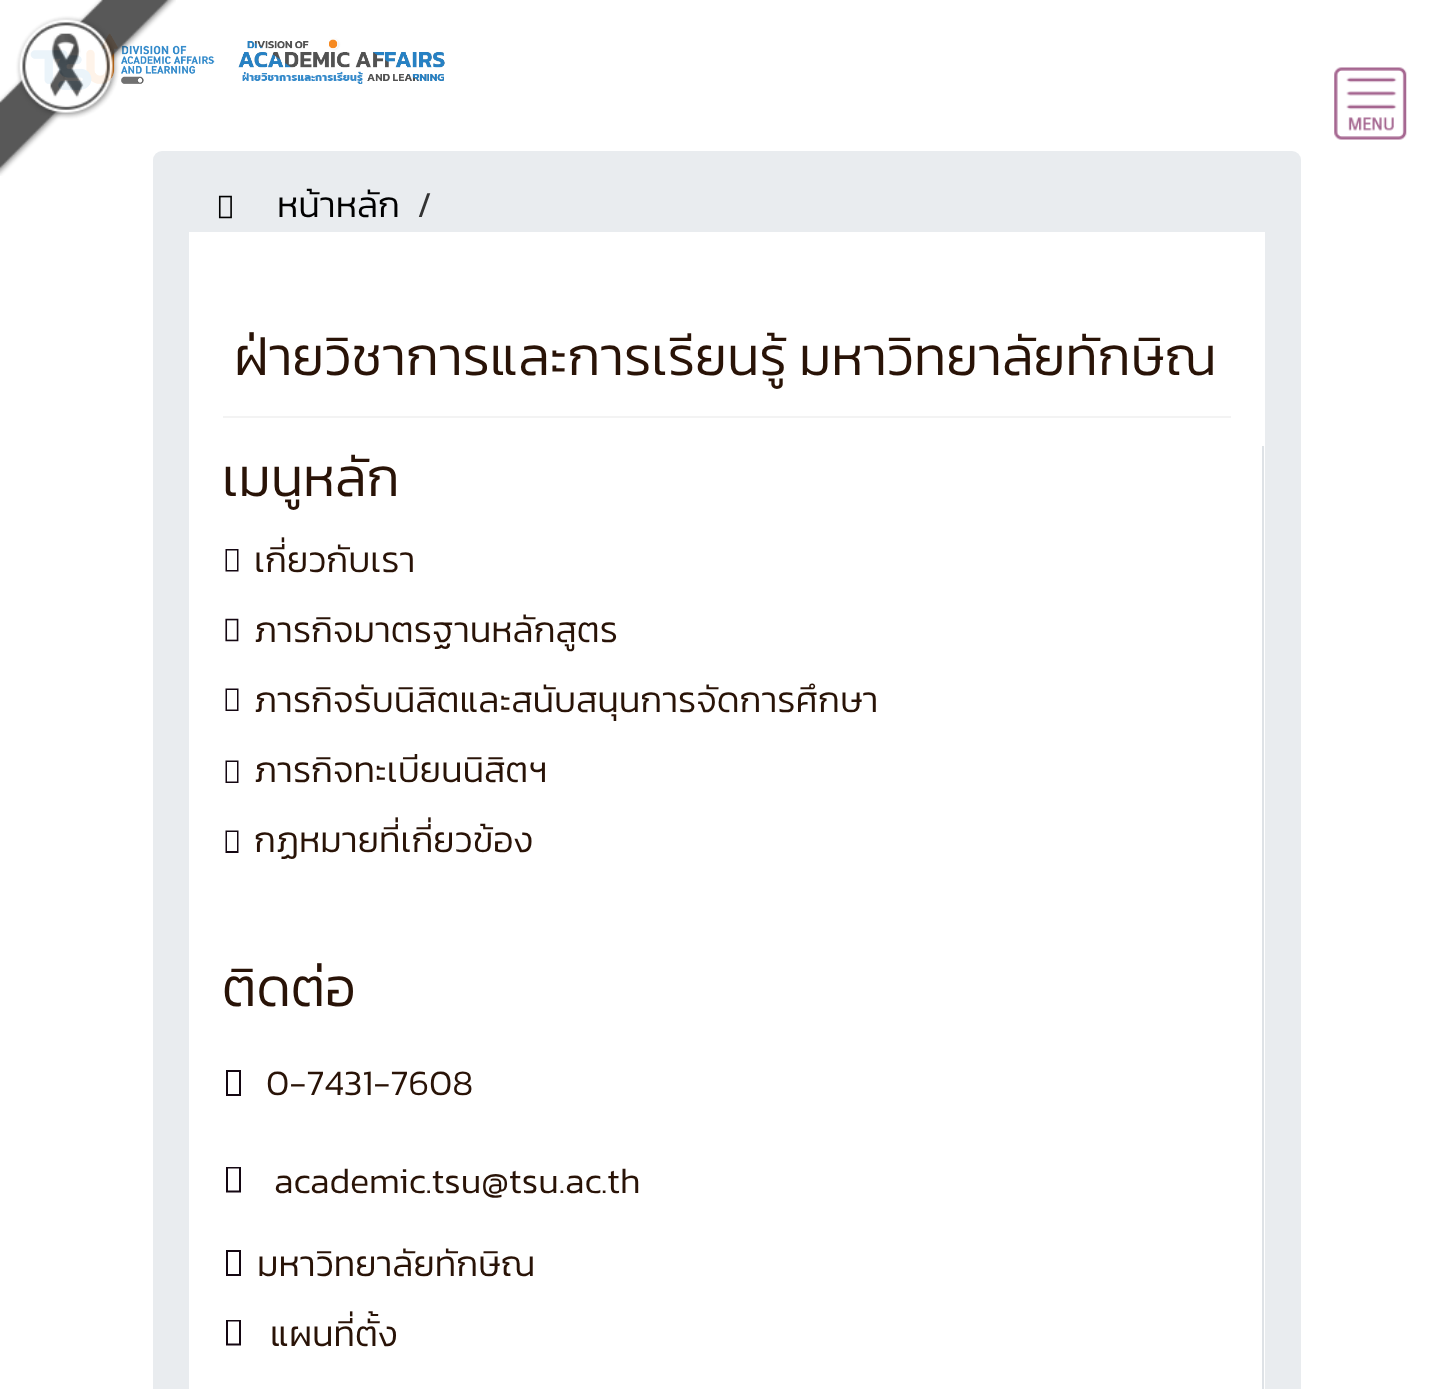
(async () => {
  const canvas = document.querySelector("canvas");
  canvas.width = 1450;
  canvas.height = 1389;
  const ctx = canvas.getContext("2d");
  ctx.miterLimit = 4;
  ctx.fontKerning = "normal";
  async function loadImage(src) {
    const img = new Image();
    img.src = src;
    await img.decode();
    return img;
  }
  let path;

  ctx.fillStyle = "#ffffff";
  ctx.fillRect(0, 0, 1450, 1389);
  ctx.drawImage(await loadImage("img/2.png"), 30, 33, 415, 57);
  ctx.fillStyle = "#e9ecef";
  ctx.beginPath();
  ctx.roundRect(153, 151, 1148, 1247, 9);
  ctx.fill();
  ctx.drawImage(await loadImage("img/1.png"), 0, 0, 176, 176);
  ctx.drawImage(await loadImage("img/3.png"), 1334, 67, 73, 73);
  ctx.drawImage(await loadImage("img/4.png"), 218, 195, 14, 24);
  for (const [x, y, w, h, color] of [
    [189, 232, 1076, 1157, "#ffffff"],
    [223, 416, 1008, 2, "#f3f3f3"],
    [1262, 446, 2, 943, "#dee2e6"],
  ]) {
    ctx.fillStyle = color;
    ctx.fillRect(x, y, w, h);
  }
  ctx.fillStyle = "#140712";
  path = new Path2D("M225.5 571.5V549H238.5V571.5ZM227 570H237V550.5H227Z");
  ctx.fill(path);
  ctx.drawImage(await loadImage("img/5.png"), 225, 618, 14, 24);
  path = new Path2D("M225.5 711V688.5H238.5V711ZM227 709.5H237V690H227Z");
  ctx.fill(path);
  path = new Path2D("M225.5 783V760.5H238.5V783ZM227 781.5H237V762H227Z");
  ctx.fill(path);
  path = new Path2D("M225.5 853V830.5H238.5V853ZM227 851H237V832H227Z");
  ctx.fill(path);
  path = new Path2D("M226 1096V1070H241V1096ZM228 1094H239V1072H228Z");
  ctx.fill(path);
  path = new Path2D("M226 1192.5V1167H241V1192.5ZM228 1190.5H239V1168.5H228Z");
  ctx.fill(path);
  path = new Path2D("M226 1276V1250H241V1276ZM228 1274H239V1252H228Z");
  ctx.fill(path);
  path = new Path2D("M226 1345.5V1320H241V1345.5ZM228 1343.5H239V1321.5H228Z");
  ctx.fill(path);
  ctx.font = "300 36px Kanit";
  ctx.fillStyle = "#000000";
  ctx.fillText("หน้าหลัก", 277, 217);
  ctx.fillStyle = "#333333";
  ctx.fillText("/", 417, 217);
  ctx.font = "300 54px Kanit";
  ctx.fillStyle = "#291307";
  ctx.fillText("ฝ่ายวิชาการและการเรียนรู้ มหาวิทยาลัยทักษิณ", 234, 375);
  ctx.fillText("เมนูหลัก", 222, 496);
  ctx.font = "300 36px Kanit";
  for (const [text, x, y] of [
    ["เกี่ยวกับเรา", 254, 572],
    ["ภารกิจมาตรฐานหลักสูตร", 254, 642],
    ["ภารกิจรับนิสิตและสนับสนุนการจัดการศึกษา", 254, 712],
    ["ภารกิจทะเบียนนิสิตฯ", 254, 782],
    ["กฏหมายที่เกี่ยวข้อง", 254, 852],
  ]) {
    ctx.fillText(text, x, y);
  }
  ctx.font = "300 54px Kanit";
  ctx.fillText("ติดต่อ", 222, 1006);
  ctx.font = "300 36px Kanit";
  for (const [text, x, y] of [
    ["0-7431-7608", 266, 1095],
    ["academic.tsu@tsu.ac.th", 274, 1193],
    ["มหาวิทยาลัยทักษิณ", 257, 1276],
    ["แผนที่ตั้ง", 270, 1346],
  ]) {
    ctx.fillText(text, x, y);
  }
})();
